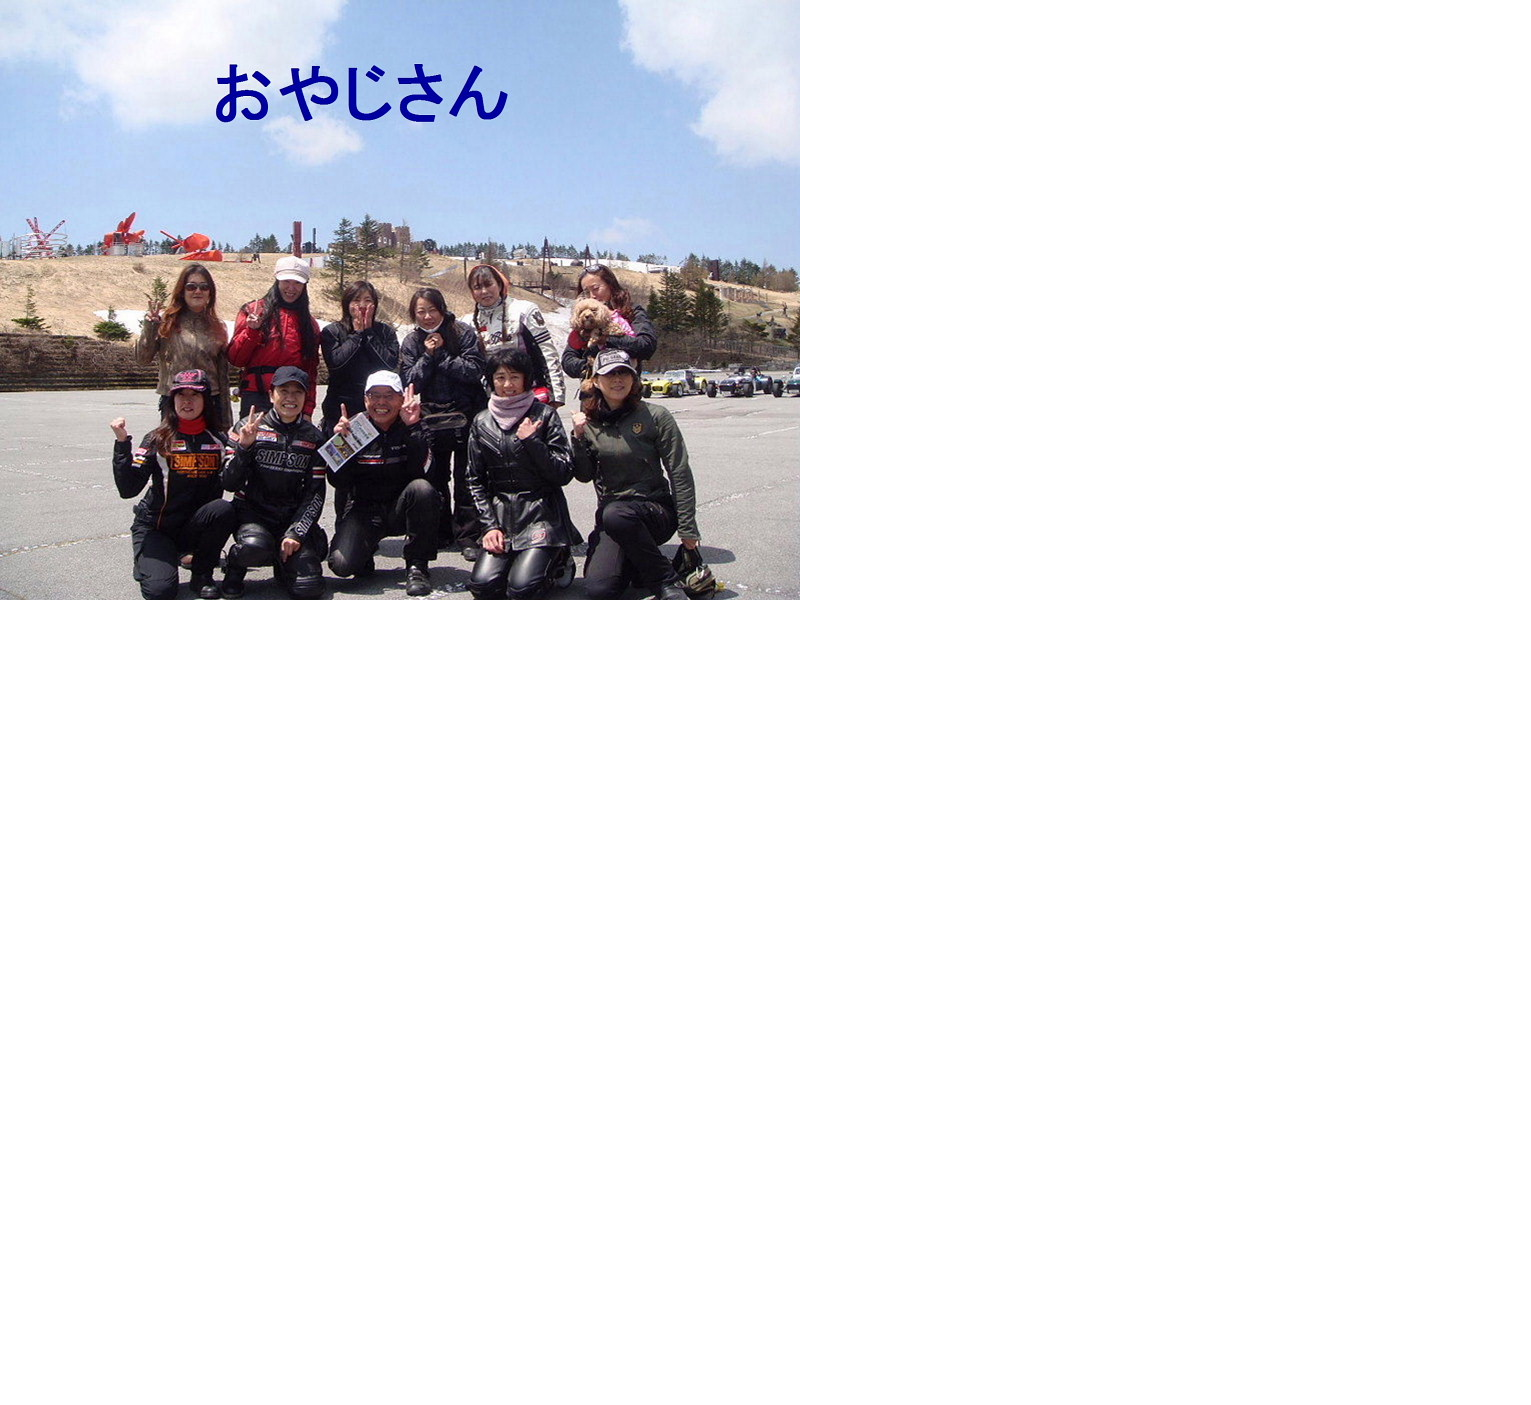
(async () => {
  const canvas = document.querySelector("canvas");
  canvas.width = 1531;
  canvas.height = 1405;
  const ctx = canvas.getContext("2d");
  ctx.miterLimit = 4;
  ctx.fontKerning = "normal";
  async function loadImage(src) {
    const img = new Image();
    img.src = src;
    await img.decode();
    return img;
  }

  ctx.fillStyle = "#ffffff";
  ctx.fillRect(0, 0, 1531, 1405);
  ctx.drawImage(await loadImage("img/1.png"), 0, 0, 800, 600);
})();
